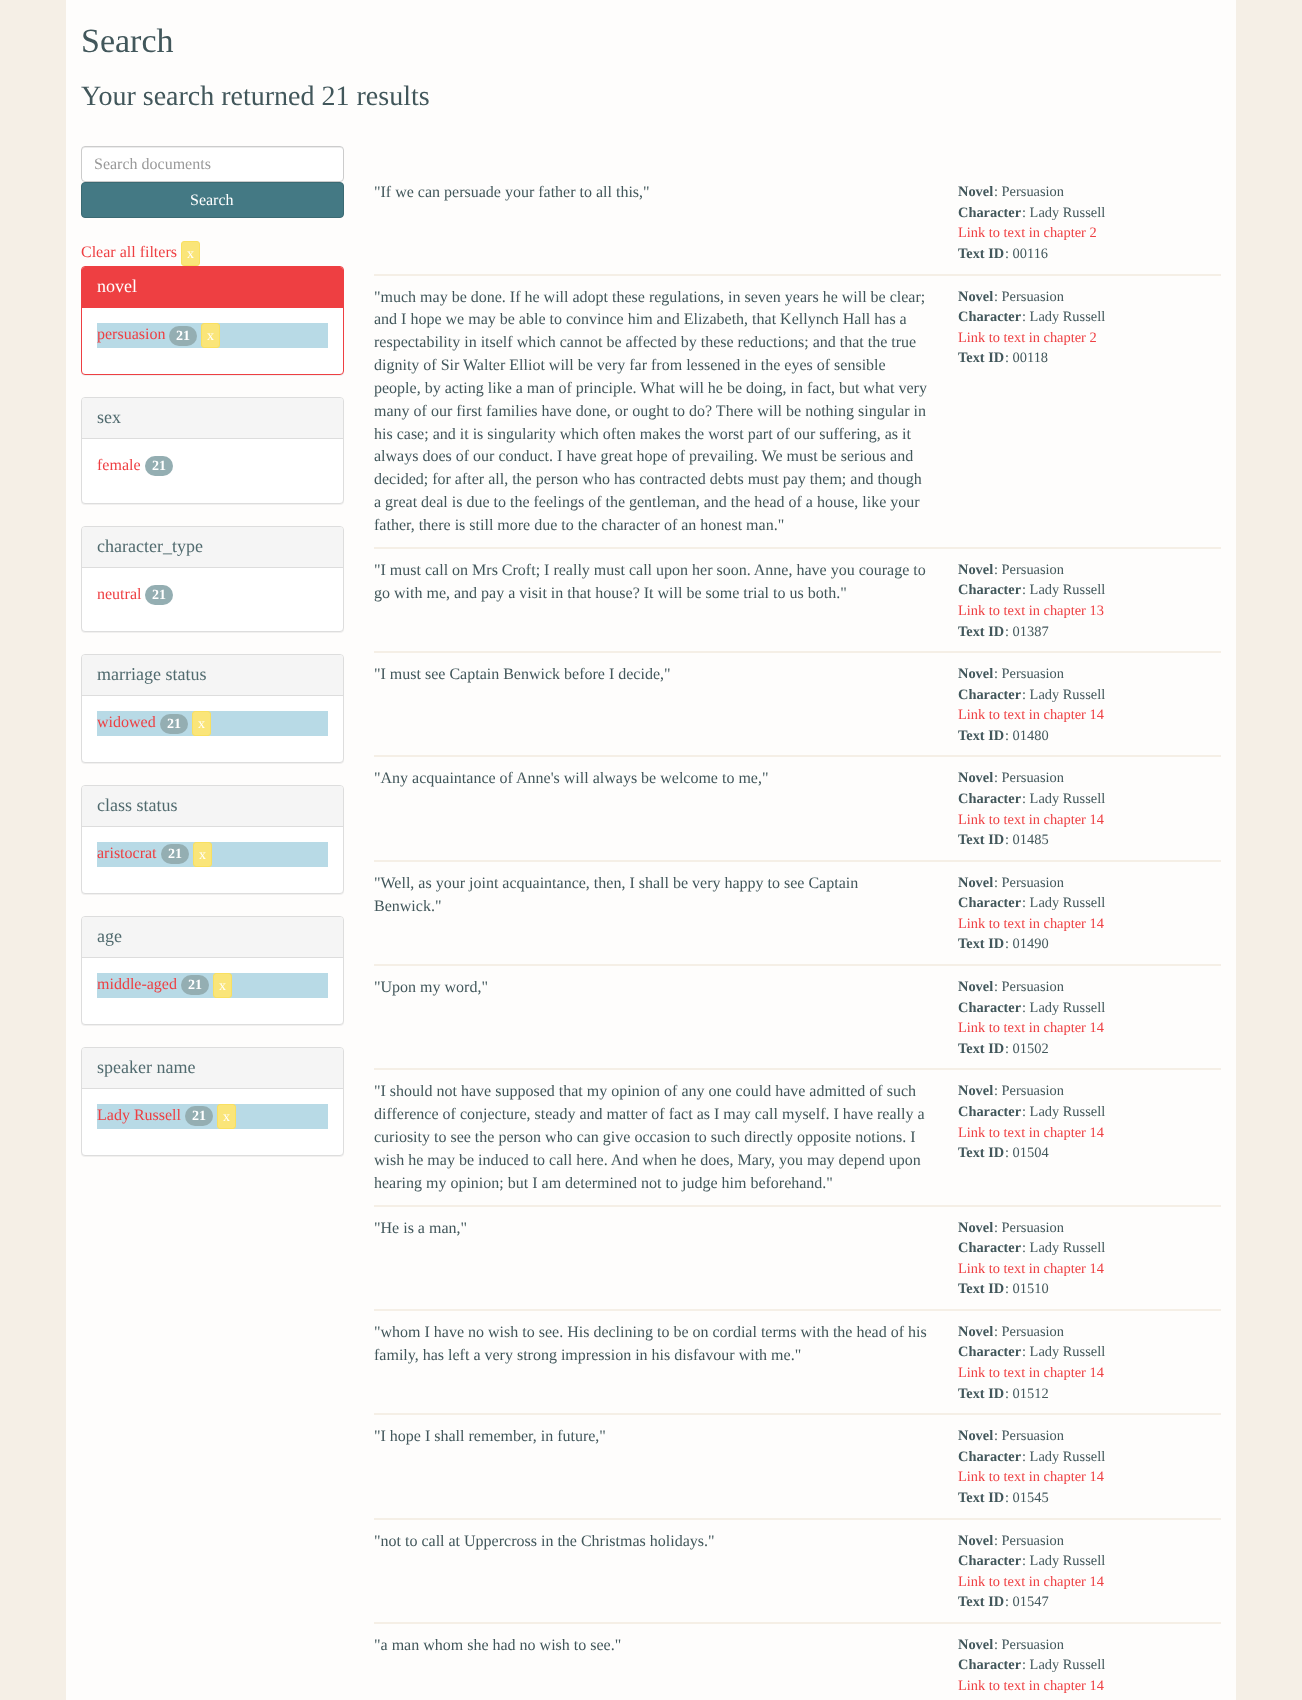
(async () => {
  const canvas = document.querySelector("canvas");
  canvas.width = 1302;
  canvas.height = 1700;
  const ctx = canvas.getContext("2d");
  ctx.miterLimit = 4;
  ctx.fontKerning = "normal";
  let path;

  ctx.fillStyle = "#f5efe6";
  ctx.fillRect(0, 0, 1302, 1700);
  ctx.fillStyle = "#fefdfc";
  ctx.fillRect(66, 0, 1170, 1700);
  ctx.fillStyle = "#ffffff";
  ctx.beginPath();
  ctx.roundRect(81, 146, 263, 36, 4);
  ctx.fill();
  ctx.fillStyle = "#ececec";
  path = new Path2D("M85 148H341L343 149V151V150C343 148 342 147 340 147H85C83 147 82 148 82 150V151C82 149 83 148 85 148Z");
  ctx.fill(path);
  ctx.beginPath();
  ctx.roundRect(81.5, 146.5, 262, 35, 3.5);
  ctx.strokeStyle = "#cccccc";
  ctx.stroke();
  ctx.fillStyle = "#447984";
  ctx.beginPath();
  ctx.roundRect(81.5, 182.5, 262, 35, 3.5);
  ctx.fill();
  ctx.strokeStyle = "#3b6a73";
  ctx.stroke();
  ctx.fillStyle = "rgba(0, 0, 0, 0.05)";
  ctx.filter = "blur(0.5px)";
  ctx.beginPath();
  ctx.roundRect(81, 267, 263, 109, 4);
  ctx.fill();
  ctx.filter = "none";
  ctx.fillStyle = "#fae579";
  ctx.beginPath();
  ctx.roundRect(181.5, 241.5, 18, 24, 2.5);
  ctx.fill();
  ctx.strokeStyle = "#f9e060";
  ctx.stroke();
  ctx.fillStyle = "#ffffff";
  ctx.beginPath();
  ctx.roundRect(81.5, 266.5, 262, 108, 3.5);
  ctx.fill();
  ctx.strokeStyle = "#ee3f42";
  ctx.stroke();
  ctx.fillStyle = "#ee3f42";
  ctx.beginPath();
  ctx.roundRect(82, 267, 261, 41, [3, 3, 0, 0]);
  ctx.fill();
  ctx.fillStyle = "#b8dae6";
  ctx.fillRect(97, 323, 231, 25);
  ctx.fillStyle = "#94aeb2";
  ctx.beginPath();
  ctx.roundRect(169, 326, 28, 20, 10);
  ctx.fill();
  ctx.fillStyle = "#fae579";
  ctx.beginPath();
  ctx.roundRect(201.5, 323.5, 18, 24, 2.5);
  ctx.fill();
  ctx.strokeStyle = "#f9e060";
  ctx.stroke();
  ctx.fillStyle = "rgba(0, 0, 0, 0.05)";
  ctx.filter = "blur(0.5px)";
  ctx.beginPath();
  ctx.roundRect(81, 398, 263, 107, 4);
  ctx.fill();
  ctx.filter = "none";
  ctx.fillStyle = "#ffffff";
  ctx.beginPath();
  ctx.roundRect(81.5, 397.5, 262, 106, 3.5);
  ctx.fill();
  ctx.strokeStyle = "#dddddd";
  ctx.stroke();
  ctx.fillStyle = "#f5f5f5";
  ctx.beginPath();
  ctx.roundRect(82, 398, 261, 41, [3, 3, 0, 0]);
  ctx.fill();
  ctx.fillStyle = "#dddddd";
  ctx.fillRect(82, 438, 261, 1);
  ctx.fillStyle = "#94aeb2";
  ctx.beginPath();
  ctx.roundRect(145, 456, 28, 20, 10);
  ctx.fill();
  ctx.fillStyle = "rgba(0, 0, 0, 0.05)";
  ctx.filter = "blur(0.5px)";
  ctx.beginPath();
  ctx.roundRect(81, 527, 263, 106, 4);
  ctx.fill();
  ctx.filter = "none";
  ctx.fillStyle = "#ffffff";
  ctx.beginPath();
  ctx.roundRect(81.5, 526.5, 262, 105, 3.5);
  ctx.fill();
  ctx.stroke();
  ctx.fillStyle = "#f5f5f5";
  ctx.beginPath();
  ctx.roundRect(82, 527, 261, 41, [3, 3, 0, 0]);
  ctx.fill();
  ctx.fillStyle = "#dddddd";
  ctx.fillRect(82, 567, 261, 1);
  ctx.fillStyle = "#94aeb2";
  ctx.beginPath();
  ctx.roundRect(145, 585, 28, 20, 10);
  ctx.fill();
  ctx.fillStyle = "rgba(0, 0, 0, 0.05)";
  ctx.filter = "blur(0.5px)";
  ctx.beginPath();
  ctx.roundRect(81, 655, 263, 109, 4);
  ctx.fill();
  ctx.filter = "none";
  ctx.fillStyle = "#ffffff";
  ctx.beginPath();
  ctx.roundRect(81.5, 654.5, 262, 108, 3.5);
  ctx.fill();
  ctx.stroke();
  ctx.fillStyle = "#f5f5f5";
  ctx.beginPath();
  ctx.roundRect(82, 655, 261, 41, [3, 3, 0, 0]);
  ctx.fill();
  ctx.fillStyle = "#dddddd";
  ctx.fillRect(82, 695, 261, 1);
  ctx.fillStyle = "#b8dae6";
  ctx.fillRect(97, 711, 231, 25);
  ctx.fillStyle = "#94aeb2";
  ctx.beginPath();
  ctx.roundRect(160, 714, 28, 20, 10);
  ctx.fill();
  ctx.fillStyle = "#fae579";
  ctx.beginPath();
  ctx.roundRect(192.5, 711.5, 18, 24, 2.5);
  ctx.fill();
  ctx.strokeStyle = "#f9e060";
  ctx.stroke();
  ctx.fillStyle = "rgba(0, 0, 0, 0.05)";
  ctx.filter = "blur(0.5px)";
  ctx.beginPath();
  ctx.roundRect(81, 786, 263, 109, 4);
  ctx.fill();
  ctx.filter = "none";
  ctx.fillStyle = "#ffffff";
  ctx.beginPath();
  ctx.roundRect(81.5, 785.5, 262, 108, 3.5);
  ctx.fill();
  ctx.strokeStyle = "#dddddd";
  ctx.stroke();
  ctx.fillStyle = "#f5f5f5";
  ctx.beginPath();
  ctx.roundRect(82, 786, 261, 41, [3, 3, 0, 0]);
  ctx.fill();
  ctx.fillStyle = "#dddddd";
  ctx.fillRect(82, 826, 261, 1);
  ctx.fillStyle = "#b8dae6";
  ctx.fillRect(97, 842, 231, 25);
  ctx.fillStyle = "#94aeb2";
  ctx.beginPath();
  ctx.roundRect(161, 844, 28, 20, 10);
  ctx.fill();
  ctx.fillStyle = "#fae579";
  ctx.beginPath();
  ctx.roundRect(193.5, 842.5, 18, 24, 2.5);
  ctx.fill();
  ctx.strokeStyle = "#f9e060";
  ctx.stroke();
  ctx.fillStyle = "rgba(0, 0, 0, 0.05)";
  ctx.filter = "blur(0.5px)";
  ctx.beginPath();
  ctx.roundRect(81, 917, 263, 109, 4);
  ctx.fill();
  ctx.filter = "none";
  ctx.fillStyle = "#ffffff";
  ctx.beginPath();
  ctx.roundRect(81.5, 916.5, 262, 108, 3.5);
  ctx.fill();
  ctx.strokeStyle = "#dddddd";
  ctx.stroke();
  ctx.fillStyle = "#f5f5f5";
  ctx.beginPath();
  ctx.roundRect(82, 917, 261, 41, [3, 3, 0, 0]);
  ctx.fill();
  ctx.fillStyle = "#dddddd";
  ctx.fillRect(82, 957, 261, 1);
  ctx.fillStyle = "#b8dae6";
  ctx.fillRect(97, 973, 231, 25);
  ctx.fillStyle = "#94aeb2";
  ctx.beginPath();
  ctx.roundRect(181, 975, 28, 20, 10);
  ctx.fill();
  ctx.fillStyle = "#fae579";
  ctx.beginPath();
  ctx.roundRect(213.5, 973.5, 18, 24, 2.5);
  ctx.fill();
  ctx.strokeStyle = "#f9e060";
  ctx.stroke();
  ctx.fillStyle = "rgba(0, 0, 0, 0.05)";
  ctx.filter = "blur(0.5px)";
  ctx.beginPath();
  ctx.roundRect(81, 1048, 263, 109, 4);
  ctx.fill();
  ctx.filter = "none";
  ctx.fillStyle = "#ffffff";
  ctx.beginPath();
  ctx.roundRect(81.5, 1047.5, 262, 108, 3.5);
  ctx.fill();
  ctx.strokeStyle = "#dddddd";
  ctx.stroke();
  ctx.fillStyle = "#f5f5f5";
  ctx.beginPath();
  ctx.roundRect(82, 1048, 261, 41, [3, 3, 0, 0]);
  ctx.fill();
  ctx.fillStyle = "#dddddd";
  ctx.fillRect(82, 1088, 261, 1);
  ctx.fillStyle = "#b8dae6";
  ctx.fillRect(97, 1104, 231, 25);
  ctx.fillStyle = "#94aeb2";
  ctx.beginPath();
  ctx.roundRect(185, 1106, 28, 20, 10);
  ctx.fill();
  ctx.fillStyle = "#fae579";
  ctx.beginPath();
  ctx.roundRect(217.5, 1104.5, 18, 24, 2.5);
  ctx.fill();
  ctx.strokeStyle = "#f9e060";
  ctx.stroke();
  for (const [x, y, w, h, color] of [
    [374, 274, 847, 2, "#f5efe6"],
    [374, 547, 847, 2, "#f5efe6"],
    [374, 651, 847, 2, "#f5efe6"],
    [374, 755, 847, 2, "#f5efe6"],
    [374, 860, 847, 2, "#f5efe6"],
    [374, 964, 847, 2, "#f5efe6"],
    [374, 1068, 847, 2, "#f5efe6"],
    [374, 1205, 847, 2, "#f5efe6"],
    [374, 1309, 847, 2, "#f5efe6"],
    [374, 1413, 847, 2, "#f5efe6"],
    [374, 1518, 847, 2, "#f5efe6"],
    [374, 1622, 847, 2, "#f5efe6"],
  ]) {
    ctx.fillStyle = color;
    ctx.fillRect(x, y, w, h);
  }
  ctx.font = "34px Liberation Serif";
  ctx.fillStyle = "#42575b";
  ctx.fillText("Search", 81, 52);
  ctx.font = "28px Liberation Serif";
  ctx.fillText("Your search returned 21 results", 81, 105);
  ctx.font = "16px Liberation Serif";
  ctx.fillStyle = "#999999";
  ctx.fillText("Search documents", 94, 169);
  ctx.fillStyle = "#ffffff";
  ctx.fillText("Search", 190, 205);
  ctx.fillStyle = "#ee3f42";
  ctx.fillText("Clear all filters", 81, 257);
  ctx.font = "14px Liberation Serif";
  ctx.fillStyle = "#ffffff";
  ctx.fillText("x", 187, 258);
  ctx.font = "18px Liberation Serif";
  ctx.fillText("novel", 97, 292);
  ctx.font = "16px Liberation Serif";
  ctx.fillStyle = "#ee3f42";
  ctx.fillText("persuasion", 97, 339);
  ctx.font = "bold 14px Liberation Serif";
  ctx.fillStyle = "#ffffff";
  ctx.fillText("21", 176, 340);
  ctx.font = "14px Liberation Serif";
  ctx.fillText("x", 207, 340);
  ctx.font = "18px Liberation Serif";
  ctx.fillStyle = "#506a6e";
  ctx.fillText("sex", 97, 423);
  ctx.font = "16px Liberation Serif";
  ctx.fillStyle = "#ee3f42";
  ctx.fillText("female", 97, 470);
  ctx.font = "bold 14px Liberation Serif";
  ctx.fillStyle = "#ffffff";
  ctx.fillText("21", 152, 470);
  ctx.font = "18px Liberation Serif";
  ctx.fillStyle = "#506a6e";
  ctx.fillText("character_type", 97, 552);
  ctx.font = "16px Liberation Serif";
  ctx.fillStyle = "#ee3f42";
  ctx.fillText("neutral", 97, 599);
  ctx.font = "bold 14px Liberation Serif";
  ctx.fillStyle = "#ffffff";
  ctx.fillText("21", 152, 599);
  ctx.font = "18px Liberation Serif";
  ctx.fillStyle = "#506a6e";
  ctx.fillText("marriage status", 97, 680);
  ctx.font = "16px Liberation Serif";
  ctx.fillStyle = "#ee3f42";
  ctx.fillText("widowed", 97, 727);
  ctx.font = "bold 14px Liberation Serif";
  ctx.fillStyle = "#ffffff";
  ctx.fillText("21", 167, 728);
  ctx.font = "14px Liberation Serif";
  ctx.fillText("x", 198, 728);
  ctx.font = "18px Liberation Serif";
  ctx.fillStyle = "#506a6e";
  ctx.fillText("class status", 97, 811);
  ctx.font = "16px Liberation Serif";
  ctx.fillStyle = "#ee3f42";
  ctx.fillText("aristocrat", 97, 858);
  ctx.font = "bold 14px Liberation Serif";
  ctx.fillStyle = "#ffffff";
  ctx.fillText("21", 168, 858);
  ctx.font = "14px Liberation Serif";
  ctx.fillText("x", 199, 859);
  ctx.font = "18px Liberation Serif";
  ctx.fillStyle = "#506a6e";
  ctx.fillText("age", 97, 942);
  ctx.font = "16px Liberation Serif";
  ctx.fillStyle = "#ee3f42";
  ctx.fillText("middle-aged", 97, 989);
  ctx.font = "bold 14px Liberation Serif";
  ctx.fillStyle = "#ffffff";
  ctx.fillText("21", 188, 989);
  ctx.font = "14px Liberation Serif";
  ctx.fillText("x", 219, 990);
  ctx.font = "18px Liberation Serif";
  ctx.fillStyle = "#506a6e";
  ctx.fillText("speaker name", 97, 1073);
  ctx.font = "16px Liberation Serif";
  ctx.fillStyle = "#ee3f42";
  ctx.fillText("Lady Russell", 97, 1120);
  ctx.font = "bold 14px Liberation Serif";
  ctx.fillStyle = "#ffffff";
  ctx.fillText("21", 192, 1120);
  ctx.font = "14px Liberation Serif";
  ctx.fillText("x", 223, 1121);
  ctx.font = "16px Liberation Serif";
  ctx.fillStyle = "#42575b";
  ctx.fillText("\"If we can persuade your father to all this,\"", 374, 197);
  ctx.font = "bold 14.4px Liberation Serif";
  ctx.fillText("Novel", 958, 196);
  ctx.font = "14.4px Liberation Serif";
  ctx.fillText(": Persuasion", 994, 196);
  ctx.font = "bold 14.4px Liberation Serif";
  ctx.fillText("Character", 958, 217);
  ctx.font = "14.4px Liberation Serif";
  ctx.fillText(": Lady Russell", 1022, 217);
  ctx.fillStyle = "#ee3f42";
  ctx.fillText("Link to text in chapter 2", 958, 237);
  ctx.font = "bold 14.4px Liberation Serif";
  ctx.fillStyle = "#42575b";
  ctx.fillText("Text ID", 958, 258);
  ctx.font = "14.4px Liberation Serif";
  ctx.fillText(": 00116", 1005, 258);
  ctx.font = "16px Liberation Serif";
  for (const [text, x, y] of [
    ["\"much may be done. If he will adopt these regulations, in seven years he will be clear;", 374, 302],
    ["and I hope we may be able to convince him and Elizabeth, that Kellynch Hall has a", 374, 324],
    ["respectability in itself which cannot be affected by these reductions; and that the true", 374, 347],
    ["dignity of Sir Walter Elliot will be very far from lessened in the eyes of sensible", 374, 370],
    ["people, by acting like a man of principle. What will he be doing, in fact, but what very", 374, 393],
    ["many of our first families have done, or ought to do? There will be nothing singular in", 374, 416],
    ["his case; and it is singularity which often makes the worst part of our suffering, as it", 374, 439],
    ["always does of our conduct. I have great hope of prevailing. We must be serious and", 374, 461],
    ["decided; for after all, the person who has contracted debts must pay them; and though", 374, 484],
    ["a great deal is due to the feelings of the gentleman, and the head of a house, like your", 374, 507],
    ["father, there is still more due to the character of an honest man.\"", 374, 530],
  ]) {
    ctx.fillText(text, x, y);
  }
  ctx.font = "bold 14.4px Liberation Serif";
  ctx.fillText("Novel", 958, 301);
  ctx.font = "14.4px Liberation Serif";
  ctx.fillText(": Persuasion", 994, 301);
  ctx.font = "bold 14.4px Liberation Serif";
  ctx.fillText("Character", 958, 321);
  ctx.font = "14.4px Liberation Serif";
  ctx.fillText(": Lady Russell", 1022, 321);
  ctx.fillStyle = "#ee3f42";
  ctx.fillText("Link to text in chapter 2", 958, 342);
  ctx.font = "bold 14.4px Liberation Serif";
  ctx.fillStyle = "#42575b";
  ctx.fillText("Text ID", 958, 362);
  ctx.font = "14.4px Liberation Serif";
  ctx.fillText(": 00118", 1005, 362);
  ctx.font = "16px Liberation Serif";
  ctx.fillText("\"I must call on Mrs Croft; I really must call upon her soon. Anne, have you courage to", 374, 575);
  ctx.fillText("go with me, and pay a visit in that house? It will be some trial to us both.\"", 374, 598);
  ctx.font = "bold 14.4px Liberation Serif";
  ctx.fillText("Novel", 958, 574);
  ctx.font = "14.4px Liberation Serif";
  ctx.fillText(": Persuasion", 994, 574);
  ctx.font = "bold 14.4px Liberation Serif";
  ctx.fillText("Character", 958, 594);
  ctx.font = "14.4px Liberation Serif";
  ctx.fillText(": Lady Russell", 1022, 594);
  ctx.fillStyle = "#ee3f42";
  ctx.fillText("Link to text in chapter 13", 958, 615);
  ctx.font = "bold 14.4px Liberation Serif";
  ctx.fillStyle = "#42575b";
  ctx.fillText("Text ID", 958, 636);
  ctx.font = "14.4px Liberation Serif";
  ctx.fillText(": 01387", 1005, 636);
  ctx.font = "16px Liberation Serif";
  ctx.fillText("\"I must see Captain Benwick before I decide,\"", 374, 679);
  ctx.font = "bold 14.4px Liberation Serif";
  ctx.fillText("Novel", 958, 678);
  ctx.font = "14.4px Liberation Serif";
  ctx.fillText(": Persuasion", 994, 678);
  ctx.font = "bold 14.4px Liberation Serif";
  ctx.fillText("Character", 958, 699);
  ctx.font = "14.4px Liberation Serif";
  ctx.fillText(": Lady Russell", 1022, 699);
  ctx.fillStyle = "#ee3f42";
  ctx.fillText("Link to text in chapter 14", 958, 719);
  ctx.font = "bold 14.4px Liberation Serif";
  ctx.fillStyle = "#42575b";
  ctx.fillText("Text ID", 958, 740);
  ctx.font = "14.4px Liberation Serif";
  ctx.fillText(": 01480", 1005, 740);
  ctx.font = "16px Liberation Serif";
  ctx.fillText("\"Any acquaintance of Anne's will always be welcome to me,\"", 374, 783);
  ctx.font = "bold 14.4px Liberation Serif";
  ctx.fillText("Novel", 958, 782);
  ctx.font = "14.4px Liberation Serif";
  ctx.fillText(": Persuasion", 994, 782);
  ctx.font = "bold 14.4px Liberation Serif";
  ctx.fillText("Character", 958, 803);
  ctx.font = "14.4px Liberation Serif";
  ctx.fillText(": Lady Russell", 1022, 803);
  ctx.fillStyle = "#ee3f42";
  ctx.fillText("Link to text in chapter 14", 958, 824);
  ctx.font = "bold 14.4px Liberation Serif";
  ctx.fillStyle = "#42575b";
  ctx.fillText("Text ID", 958, 844);
  ctx.font = "14.4px Liberation Serif";
  ctx.fillText(": 01485", 1005, 844);
  ctx.font = "16px Liberation Serif";
  ctx.fillText("\"Well, as your joint acquaintance, then, I shall be very happy to see Captain", 374, 888);
  ctx.fillText("Benwick.\"", 374, 911);
  ctx.font = "bold 14.4px Liberation Serif";
  ctx.fillText("Novel", 958, 887);
  ctx.font = "14.4px Liberation Serif";
  ctx.fillText(": Persuasion", 994, 887);
  ctx.font = "bold 14.4px Liberation Serif";
  ctx.fillText("Character", 958, 907);
  ctx.font = "14.4px Liberation Serif";
  ctx.fillText(": Lady Russell", 1022, 907);
  ctx.fillStyle = "#ee3f42";
  ctx.fillText("Link to text in chapter 14", 958, 928);
  ctx.font = "bold 14.4px Liberation Serif";
  ctx.fillStyle = "#42575b";
  ctx.fillText("Text ID", 958, 948);
  ctx.font = "14.4px Liberation Serif";
  ctx.fillText(": 01490", 1005, 948);
  ctx.font = "16px Liberation Serif";
  ctx.fillText("\"Upon my word,\"", 374, 992);
  ctx.font = "bold 14.4px Liberation Serif";
  ctx.fillText("Novel", 958, 991);
  ctx.font = "14.4px Liberation Serif";
  ctx.fillText(": Persuasion", 994, 991);
  ctx.font = "bold 14.4px Liberation Serif";
  ctx.fillText("Character", 958, 1012);
  ctx.font = "14.4px Liberation Serif";
  ctx.fillText(": Lady Russell", 1022, 1012);
  ctx.fillStyle = "#ee3f42";
  ctx.fillText("Link to text in chapter 14", 958, 1032);
  ctx.font = "bold 14.4px Liberation Serif";
  ctx.fillStyle = "#42575b";
  ctx.fillText("Text ID", 958, 1053);
  ctx.font = "14.4px Liberation Serif";
  ctx.fillText(": 01502", 1005, 1053);
  ctx.font = "16px Liberation Serif";
  for (const [text, x, y] of [
    ["\"I should not have supposed that my opinion of any one could have admitted of such", 374, 1096],
    ["difference of conjecture, steady and matter of fact as I may call myself. I have really a", 374, 1119],
    ["curiosity to see the person who can give occasion to such directly opposite notions. I", 374, 1142],
    ["wish he may be induced to call here. And when he does, Mary, you may depend upon", 374, 1165],
    ["hearing my opinion; but I am determined not to judge him beforehand.\"", 374, 1188],
  ]) {
    ctx.fillText(text, x, y);
  }
  ctx.font = "bold 14.4px Liberation Serif";
  ctx.fillText("Novel", 958, 1095);
  ctx.font = "14.4px Liberation Serif";
  ctx.fillText(": Persuasion", 994, 1095);
  ctx.font = "bold 14.4px Liberation Serif";
  ctx.fillText("Character", 958, 1116);
  ctx.font = "14.4px Liberation Serif";
  ctx.fillText(": Lady Russell", 1022, 1116);
  ctx.fillStyle = "#ee3f42";
  ctx.fillText("Link to text in chapter 14", 958, 1137);
  ctx.font = "bold 14.4px Liberation Serif";
  ctx.fillStyle = "#42575b";
  ctx.fillText("Text ID", 958, 1157);
  ctx.font = "14.4px Liberation Serif";
  ctx.fillText(": 01504", 1005, 1157);
  ctx.font = "16px Liberation Serif";
  ctx.fillText("\"He is a man,\"", 374, 1233);
  ctx.font = "bold 14.4px Liberation Serif";
  ctx.fillText("Novel", 958, 1232);
  ctx.font = "14.4px Liberation Serif";
  ctx.fillText(": Persuasion", 994, 1232);
  ctx.font = "bold 14.4px Liberation Serif";
  ctx.fillText("Character", 958, 1252);
  ctx.font = "14.4px Liberation Serif";
  ctx.fillText(": Lady Russell", 1022, 1252);
  ctx.fillStyle = "#ee3f42";
  ctx.fillText("Link to text in chapter 14", 958, 1273);
  ctx.font = "bold 14.4px Liberation Serif";
  ctx.fillStyle = "#42575b";
  ctx.fillText("Text ID", 958, 1293);
  ctx.font = "14.4px Liberation Serif";
  ctx.fillText(": 01510", 1005, 1293);
  ctx.font = "16px Liberation Serif";
  ctx.fillText("\"whom I have no wish to see. His declining to be on cordial terms with the head of his", 374, 1337);
  ctx.fillText("family, has left a very strong impression in his disfavour with me.\"", 374, 1360);
  ctx.font = "bold 14.4px Liberation Serif";
  ctx.fillText("Novel", 958, 1336);
  ctx.font = "14.4px Liberation Serif";
  ctx.fillText(": Persuasion", 994, 1336);
  ctx.font = "bold 14.4px Liberation Serif";
  ctx.fillText("Character", 958, 1356);
  ctx.font = "14.4px Liberation Serif";
  ctx.fillText(": Lady Russell", 1022, 1356);
  ctx.fillStyle = "#ee3f42";
  ctx.fillText("Link to text in chapter 14", 958, 1377);
  ctx.font = "bold 14.4px Liberation Serif";
  ctx.fillStyle = "#42575b";
  ctx.fillText("Text ID", 958, 1398);
  ctx.font = "14.4px Liberation Serif";
  ctx.fillText(": 01512", 1005, 1398);
  ctx.font = "16px Liberation Serif";
  ctx.fillText("\"I hope I shall remember, in future,\"", 374, 1441);
  ctx.font = "bold 14.4px Liberation Serif";
  ctx.fillText("Novel", 958, 1440);
  ctx.font = "14.4px Liberation Serif";
  ctx.fillText(": Persuasion", 994, 1440);
  ctx.font = "bold 14.4px Liberation Serif";
  ctx.fillText("Character", 958, 1461);
  ctx.font = "14.4px Liberation Serif";
  ctx.fillText(": Lady Russell", 1022, 1461);
  ctx.fillStyle = "#ee3f42";
  ctx.fillText("Link to text in chapter 14", 958, 1481);
  ctx.font = "bold 14.4px Liberation Serif";
  ctx.fillStyle = "#42575b";
  ctx.fillText("Text ID", 958, 1502);
  ctx.font = "14.4px Liberation Serif";
  ctx.fillText(": 01545", 1005, 1502);
  ctx.font = "16px Liberation Serif";
  ctx.fillText("\"not to call at Uppercross in the Christmas holidays.\"", 374, 1546);
  ctx.font = "bold 14.4px Liberation Serif";
  ctx.fillText("Novel", 958, 1545);
  ctx.font = "14.4px Liberation Serif";
  ctx.fillText(": Persuasion", 994, 1545);
  ctx.font = "bold 14.4px Liberation Serif";
  ctx.fillText("Character", 958, 1565);
  ctx.font = "14.4px Liberation Serif";
  ctx.fillText(": Lady Russell", 1022, 1565);
  ctx.fillStyle = "#ee3f42";
  ctx.fillText("Link to text in chapter 14", 958, 1586);
  ctx.font = "bold 14.4px Liberation Serif";
  ctx.fillStyle = "#42575b";
  ctx.fillText("Text ID", 958, 1606);
  ctx.font = "14.4px Liberation Serif";
  ctx.fillText(": 01547", 1005, 1606);
  ctx.font = "16px Liberation Serif";
  ctx.fillText("\"a man whom she had no wish to see.\"", 374, 1650);
  ctx.font = "bold 14.4px Liberation Serif";
  ctx.fillText("Novel", 958, 1649);
  ctx.font = "14.4px Liberation Serif";
  ctx.fillText(": Persuasion", 994, 1649);
  ctx.font = "bold 14.4px Liberation Serif";
  ctx.fillText("Character", 958, 1669);
  ctx.font = "14.4px Liberation Serif";
  ctx.fillText(": Lady Russell", 1022, 1669);
  ctx.fillStyle = "#ee3f42";
  ctx.fillText("Link to text in chapter 14", 958, 1690);
})();
